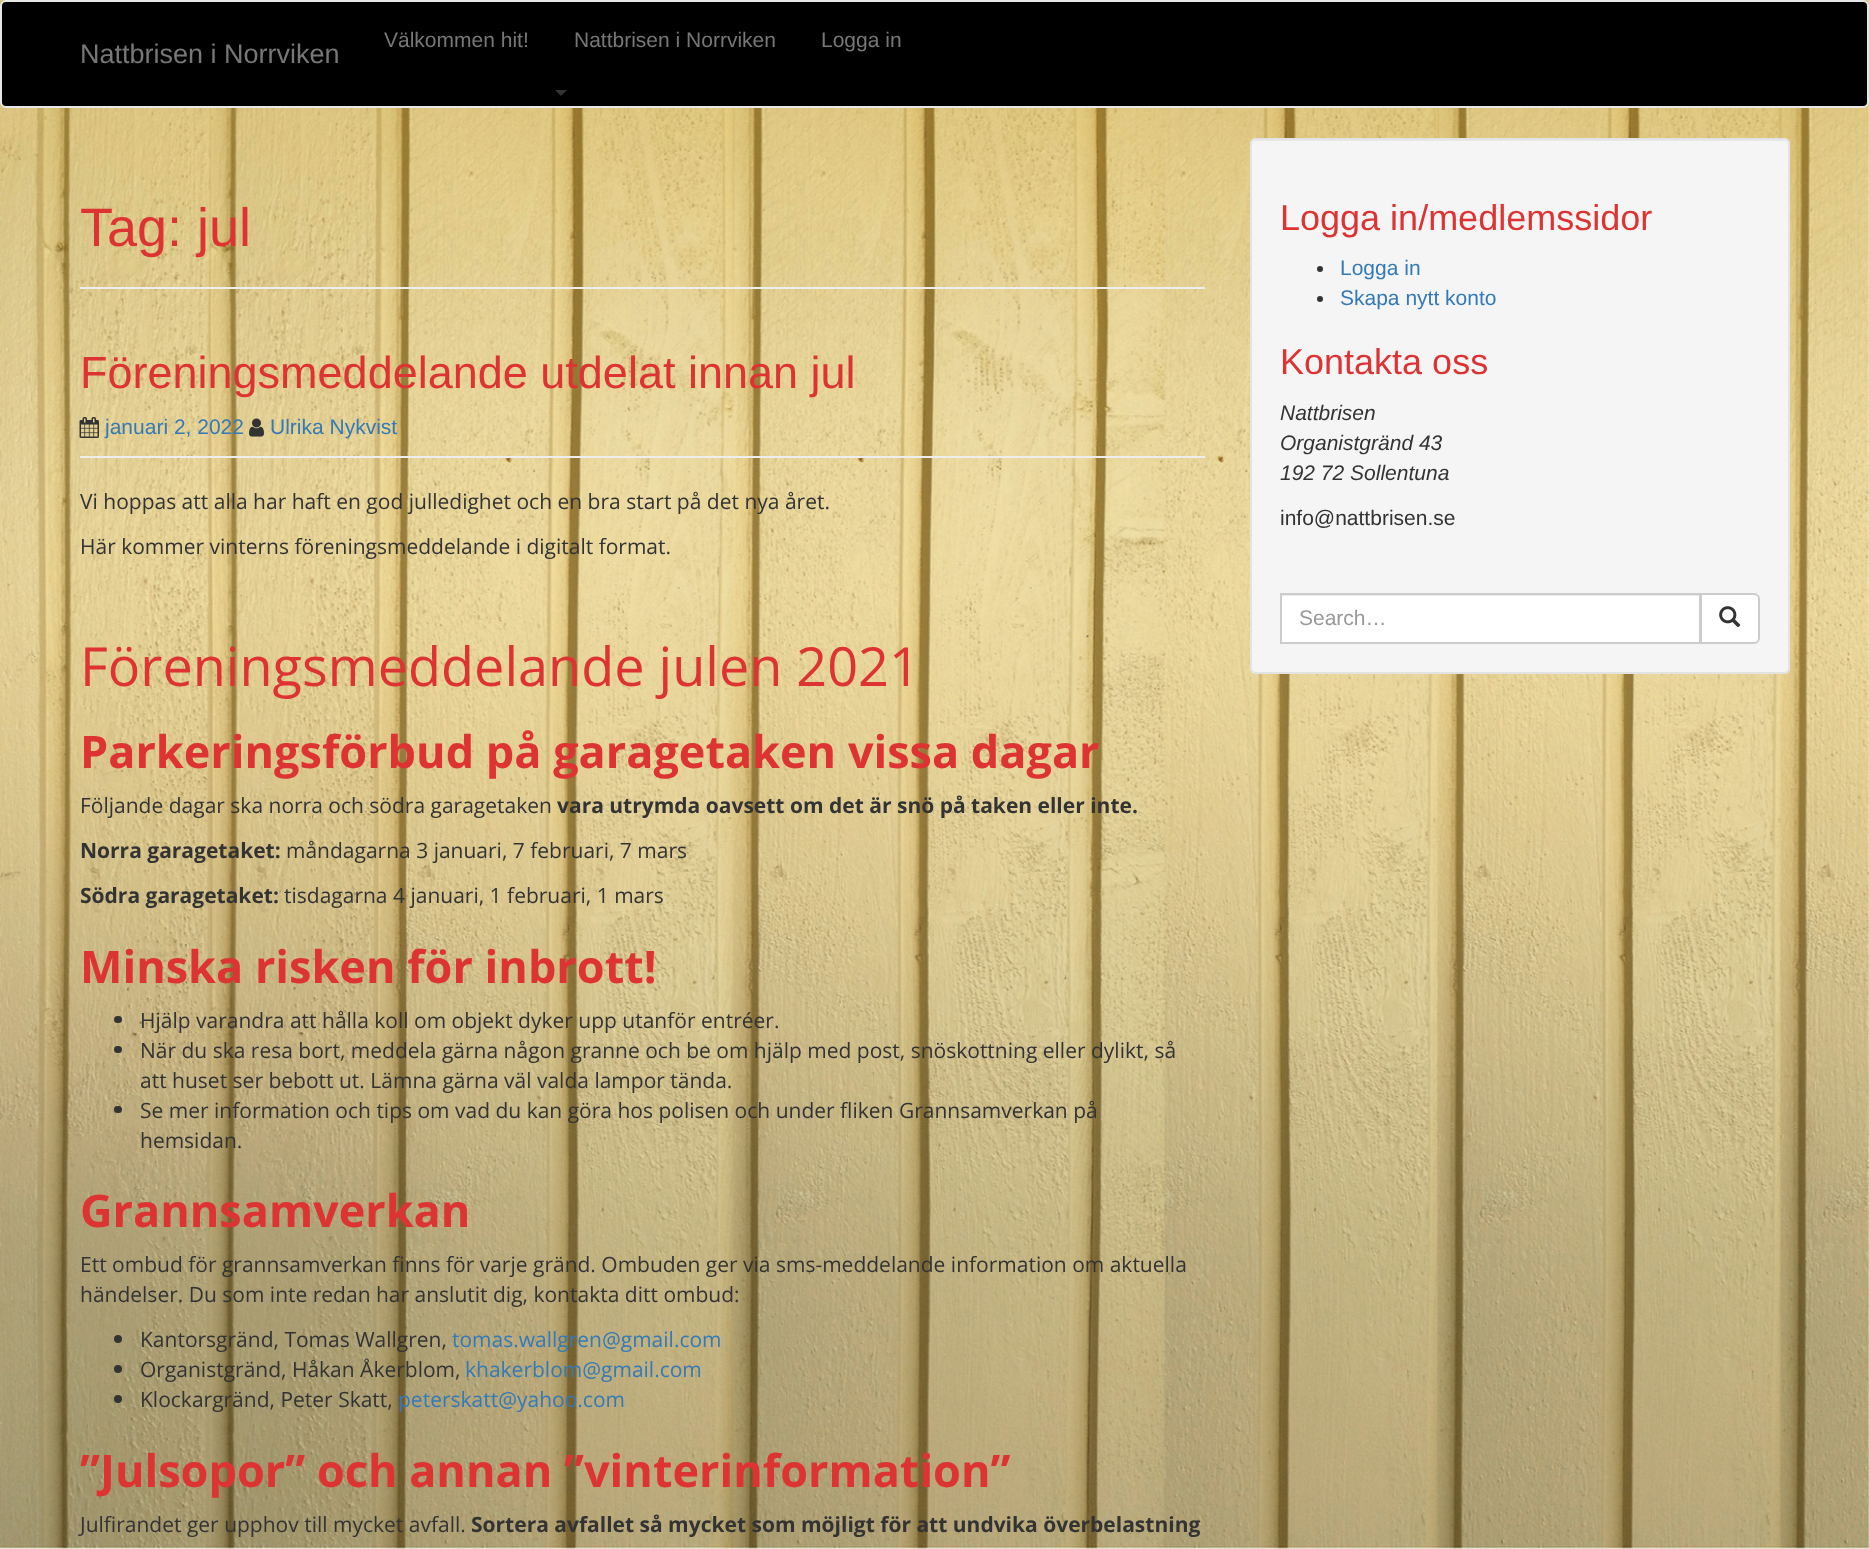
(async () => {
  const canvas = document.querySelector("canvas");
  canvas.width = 1869;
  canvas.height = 1549;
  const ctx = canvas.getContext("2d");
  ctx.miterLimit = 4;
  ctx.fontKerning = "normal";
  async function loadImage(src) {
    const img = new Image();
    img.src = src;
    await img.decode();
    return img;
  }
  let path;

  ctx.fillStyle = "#ffffff";
  ctx.fillRect(0, 0, 1869, 1549);
  ctx.drawImage(await loadImage("img/1.png"), 0, 0, 1869, 1549);
  ctx.fillStyle = "#000000";
  ctx.beginPath();
  ctx.roundRect(1, 1, 1867, 106, 5);
  ctx.fill();
  ctx.strokeStyle = "#e7e7e7";
  ctx.lineWidth = 2;
  ctx.stroke();
  ctx.fillStyle = "#333333";
  path = new Path2D("M555 90H567L561 96Z");
  ctx.fill(path);
  ctx.fillStyle = "#eeeeee";
  ctx.fillRect(80, 287, 1125, 2);
  ctx.fillRect(80, 456, 1125, 2);
  ctx.drawImage(await loadImage("img/2.png"), 79, 417, 20, 21);
  ctx.drawImage(await loadImage("img/3.png"), 249, 418, 15, 19);
  ctx.fillStyle = "#333333";
  ctx.beginPath();
  ctx.roundRect(114, 1016, 8, 7, 3.5);
  ctx.fill();
  ctx.beginPath();
  ctx.roundRect(114, 1046, 8, 7, 3.5);
  ctx.fill();
  ctx.beginPath();
  ctx.roundRect(114, 1106, 8, 7, 3.5);
  ctx.fill();
  ctx.beginPath();
  ctx.arc(118, 1339, 4, 0, Math.PI * 2);
  ctx.fill();
  ctx.beginPath();
  ctx.arc(118, 1369, 4, 0, Math.PI * 2);
  ctx.fill();
  ctx.beginPath();
  ctx.arc(118, 1399, 4, 0, Math.PI * 2);
  ctx.fill();
  ctx.fillStyle = "#f5f5f5";
  ctx.beginPath();
  ctx.roundRect(1250, 138, 540, 536, 6);
  ctx.fill();
  ctx.fillStyle = "#e9e9e9";
  path = new Path2D("M1256 141H1784C1786 141 1788 143 1788 146C1788 143 1786 140 1783 140H1256C1253 140 1251 143 1251 146C1251 143 1253 141 1256 141Z");
  ctx.fill(path);
  ctx.beginPath();
  ctx.roundRect(1251, 139, 538, 534, 5);
  ctx.strokeStyle = "#e3e3e3";
  ctx.stroke();
  ctx.fillStyle = "#333333";
  ctx.beginPath();
  ctx.arc(1320, 269, 3, 0, Math.PI * 2);
  ctx.fill();
  ctx.beginPath();
  ctx.arc(1320, 299, 3, 0, Math.PI * 2);
  ctx.fill();
  ctx.fillStyle = "#ffffff";
  ctx.fillRect(1282, 596, 417, 46);
  ctx.fillStyle = "#ececec";
  ctx.fillRect(1281, 595, 419, 1);
  ctx.strokeStyle = "#cccccc";
  ctx.strokeRect(1281, 594, 419, 49);
  ctx.fillStyle = "#ffffff";
  ctx.beginPath();
  ctx.roundRect(1701, 594, 58, 49, [0, 5, 5, 0]);
  ctx.fill();
  ctx.stroke();
  ctx.drawImage(await loadImage("img/4.png"), 1719, 606, 22, 22);
  ctx.font = "27px Liberation Sans";
  ctx.fillStyle = "#777777";
  ctx.fillText("Nattbrisen i Norrviken", 80, 63);
  ctx.font = "21px Liberation Sans";
  for (const [text, x, y] of [
    ["Välkommen hit!", 384, 47],
    ["Nattbrisen i Norrviken", 574, 47],
    ["Logga in", 821, 47],
  ]) {
    ctx.fillText(text, x, y);
  }
  ctx.font = "54px Liberation Sans";
  ctx.fillStyle = "#dd3333";
  ctx.fillText("Tag: jul", 80, 246);
  ctx.font = "45px Liberation Sans";
  ctx.fillText("Föreningsmeddelande utdelat innan jul", 80, 388);
  ctx.font = "21px Liberation Sans";
  ctx.fillStyle = "#337ab7";
  ctx.fillText("januari 2, 2022", 105, 434);
  ctx.fillText("Ulrika Nykvist", 270, 434);
  ctx.font = "21px Open Sans";
  ctx.fillStyle = "#333333";
  ctx.fillText("Vi hoppas att alla har haft en god julledighet och en bra start på det nya året.", 80, 509);
  ctx.fillText("Här kommer vinterns föreningsmeddelande i digitalt format.", 80, 554);
  ctx.font = "54px Open Sans";
  ctx.fillStyle = "#dd3333";
  ctx.fillText("Föreningsmeddelande julen 2021", 80, 686);
  ctx.font = "bold 45px Open Sans";
  ctx.fillText("Parkeringsförbud på garagetaken vissa dagar", 80, 768);
  ctx.font = "21px Open Sans";
  ctx.fillStyle = "#333333";
  ctx.fillText("Följande dagar ska norra och södra garagetaken", 80, 813);
  ctx.font = "bold 21px Open Sans";
  ctx.fillText("vara utrymda oavsett om det är snö på taken eller inte.", 557, 813);
  ctx.fillText("Norra garagetaket:", 80, 858);
  ctx.font = "21px Open Sans";
  ctx.fillText("måndagarna 3 januari, 7 februari, 7 mars", 286, 858);
  ctx.font = "bold 21px Open Sans";
  ctx.fillText("Södra garagetaket:", 80, 903);
  ctx.font = "21px Open Sans";
  ctx.fillText("tisdagarna 4 januari, 1 februari, 1 mars", 284, 903);
  ctx.font = "bold 45px Open Sans";
  ctx.fillStyle = "#dd3333";
  ctx.fillText("Minska risken för inbrott!", 80, 983);
  ctx.font = "21px Open Sans";
  ctx.fillStyle = "#333333";
  for (const [text, x, y] of [
    ["Hjälp varandra att hålla koll om objekt dyker upp utanför entréer.", 140, 1028],
    ["När du ska resa bort, meddela gärna någon granne och be om hjälp med post, snöskottning eller dylikt, så", 140, 1058],
    ["att huset ser bebott ut. Lämna gärna väl valda lampor tända.", 140, 1088],
    ["Se mer information och tips om vad du kan göra hos polisen och under fliken Grannsamverkan på", 140, 1118],
    ["hemsidan.", 140, 1148],
  ]) {
    ctx.fillText(text, x, y);
  }
  ctx.font = "bold 45px Open Sans";
  ctx.fillStyle = "#dd3333";
  ctx.fillText("Grannsamverkan", 80, 1227);
  ctx.font = "21px Open Sans";
  ctx.fillStyle = "#333333";
  for (const [text, x, y] of [
    ["Ett ombud för grannsamverkan finns för varje gränd. Ombuden ger via sms-meddelande information om aktuella", 80, 1272],
    ["händelser. Du som inte redan har anslutit dig, kontakta ditt ombud:", 80, 1302],
    ["Kantorsgränd, Tomas Wallgren,", 140, 1347],
  ]) {
    ctx.fillText(text, x, y);
  }
  ctx.fillStyle = "#337ab7";
  ctx.fillText("tomas.wallgren@gmail.com", 452, 1347);
  ctx.fillStyle = "#333333";
  ctx.fillText("Organistgränd, Håkan Åkerblom,", 140, 1377);
  ctx.fillStyle = "#337ab7";
  ctx.fillText("khakerblom@gmail.com", 465, 1377);
  ctx.fillStyle = "#333333";
  ctx.fillText("Klockargränd, Peter Skatt,", 140, 1407);
  ctx.fillStyle = "#337ab7";
  ctx.fillText("peterskatt@yahoo.com", 398, 1407);
  ctx.font = "bold 45px Open Sans";
  ctx.fillStyle = "#dd3333";
  ctx.fillText("”Julsopor” och annan ”vinterinformation”", 80, 1487);
  ctx.font = "21px Open Sans";
  ctx.fillStyle = "#333333";
  ctx.fillText("Julfirandet ger upphov till mycket avfall.", 80, 1532);
  ctx.font = "bold 21px Open Sans";
  ctx.fillText("Sortera avfallet så mycket som möjligt för att undvika överbelastning", 471, 1532);
  ctx.font = "36px Liberation Sans";
  ctx.fillStyle = "#dd3333";
  ctx.fillText("Logga in/medlemssidor", 1280, 230);
  ctx.font = "21px Liberation Sans";
  ctx.fillStyle = "#337ab7";
  ctx.fillText("Logga in", 1340, 275);
  ctx.fillText("Skapa nytt konto", 1340, 305);
  ctx.font = "36px Liberation Sans";
  ctx.fillStyle = "#dd3333";
  ctx.fillText("Kontakta oss", 1280, 374);
  ctx.font = "italic 21px Liberation Sans";
  ctx.fillStyle = "#333333";
  for (const [text, x, y] of [
    ["Nattbrisen", 1280, 420],
    ["Organistgränd 43", 1280, 450],
    ["192 72 Sollentuna", 1280, 480],
  ]) {
    ctx.fillText(text, x, y);
  }
  ctx.font = "21px Liberation Sans";
  ctx.fillText("info@nattbrisen.se", 1280, 525);
  ctx.fillStyle = "#999999";
  ctx.fillText("Search…", 1299, 625);
})();
